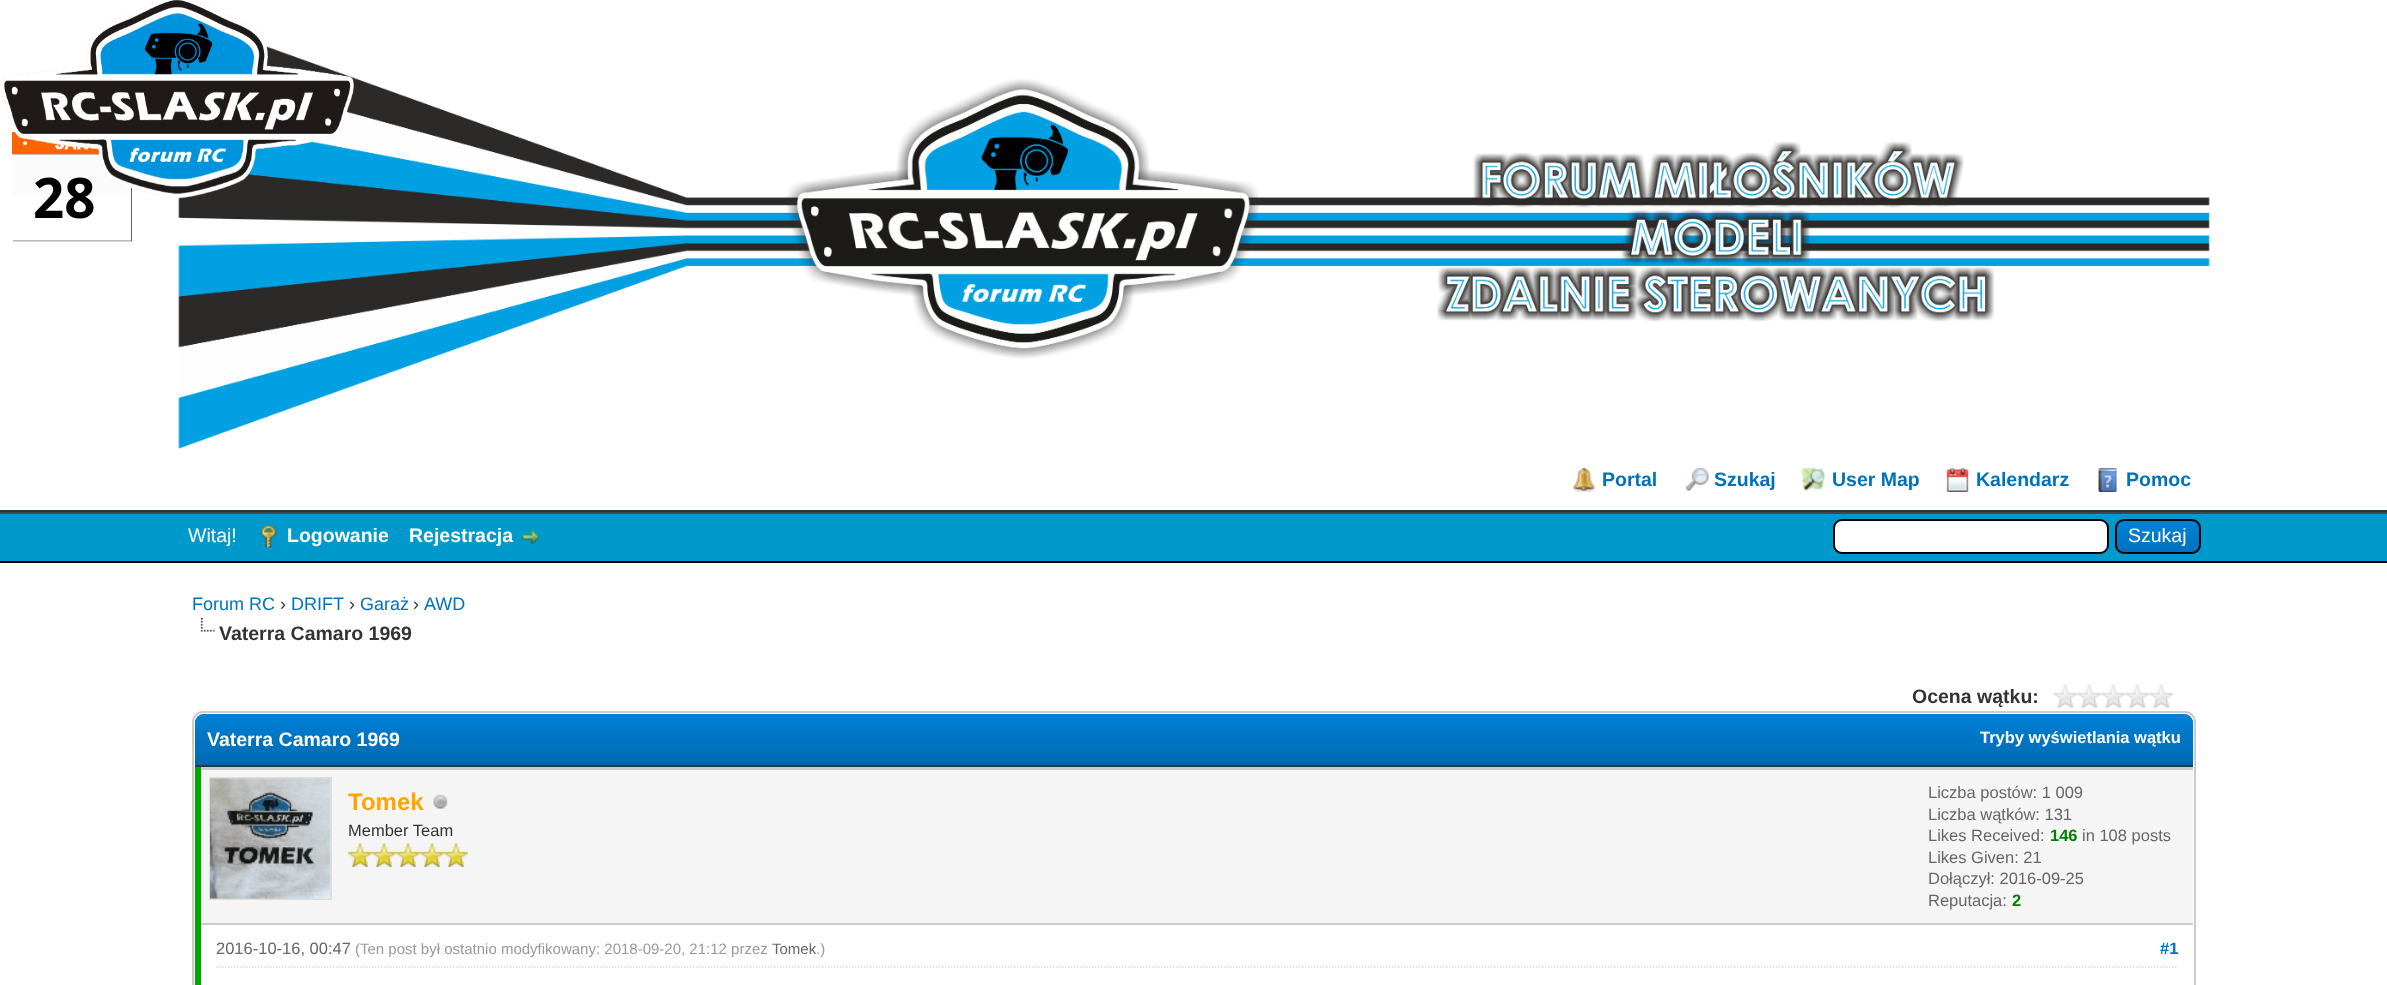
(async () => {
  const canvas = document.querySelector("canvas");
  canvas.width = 2387;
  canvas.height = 985;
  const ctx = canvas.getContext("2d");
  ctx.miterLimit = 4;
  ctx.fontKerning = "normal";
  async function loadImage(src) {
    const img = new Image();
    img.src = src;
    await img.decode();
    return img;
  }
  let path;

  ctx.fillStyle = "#ffffff";
  ctx.fillRect(0, 0, 2387, 985);
  ctx.fillStyle = "#263c30";
  ctx.fillRect(0, 510, 2387, 2);
  ctx.drawImage(await loadImage("img/2.png"), 178, 15, 2032, 434);
  ctx.drawImage(await loadImage("img/3.png"), 12, 132, 120, 110);
  ctx.drawImage(await loadImage("img/1.png"), 0, 0, 354, 199);
  ctx.drawImage(await loadImage("img/4.png"), 1573, 468, 22, 24);
  ctx.drawImage(await loadImage("img/5.png"), 1685, 468, 24, 23);
  ctx.drawImage(await loadImage("img/6.png"), 1801, 468, 25, 23);
  ctx.drawImage(await loadImage("img/7.png"), 1946, 468, 23, 24);
  ctx.drawImage(await loadImage("img/8.png"), 2098, 468, 19, 24);
  for (const [x, y, w, h, color] of [
    [0, 514, 2387, 47, "#0099cc"],
    [0, 512, 2387, 2, "#444444"],
    [0, 561, 2387, 2, "#000000"],
  ]) {
    ctx.fillStyle = color;
    ctx.fillRect(x, y, w, h);
  }
  ctx.drawImage(await loadImage("img/9.png"), 260, 525, 17, 23);
  ctx.drawImage(await loadImage("img/10.png"), 521, 529, 20, 16);
  ctx.fillStyle = "#ffffff";
  ctx.beginPath();
  ctx.roundRect(1834, 520, 274, 33, 8);
  ctx.fill();
  ctx.strokeStyle = "#000000";
  ctx.lineWidth = 2;
  ctx.stroke();
  ctx.drawImage(await loadImage("img/11.png"), 2115, 520, 86, 34);
  ctx.beginPath();
  ctx.roundRect(2116, 520, 84, 33, 8);
  ctx.stroke();
  ctx.drawImage(await loadImage("img/12.png"), 200, 618, 15, 14);
  ctx.drawImage(await loadImage("img/13.png"), 2053, 684, 121, 24);
  ctx.beginPath();
  ctx.roundRect(193, 712, 2002, 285, 10);
  ctx.strokeStyle = "#cccccc";
  ctx.stroke();
  ctx.fillStyle = "#0066a2";
  ctx.beginPath();
  ctx.roundRect(195, 714, 1998, 53, [9, 9, 0, 0]);
  ctx.fill();
  ctx.drawImage(await loadImage("img/14.png"), 195, 714, 1998, 51);
  for (const [x, y, w, h, color] of [
    [195, 765, 1998, 2, "#263c30"],
    [195, 767, 6, 218, "#00aa00"],
    [201, 770, 1992, 153, "#f5f5f5"],
    [201, 767, 1992, 3, "#cccccc"],
    [201, 923, 1992, 2, "#cccccc"],
  ]) {
    ctx.fillStyle = color;
    ctx.fillRect(x, y, w, h);
  }
  ctx.strokeStyle = "#dddddd";
  ctx.strokeRect(210, 778, 121, 121);
  ctx.drawImage(await loadImage("img/15.png"), 210, 778, 120, 121);
  ctx.drawImage(await loadImage("img/16.png"), 433, 794, 15, 15);
  ctx.drawImage(await loadImage("img/17.png"), 348, 843, 24, 24);
  ctx.drawImage(await loadImage("img/17.png"), 372, 843, 24, 24);
  ctx.drawImage(await loadImage("img/17.png"), 396, 843, 24, 24);
  ctx.drawImage(await loadImage("img/17.png"), 420, 843, 24, 24);
  ctx.drawImage(await loadImage("img/17.png"), 444, 843, 24, 24);
  path = new Path2D("M216 967H2178");
  ctx.lineWidth = 1.5;
  ctx.setLineDash([1.5, 1.5]);
  ctx.stroke(path);
  ctx.font = "bold 19.5px Liberation Sans";
  ctx.fillStyle = "#0072bc";
  for (const [text, x, y] of [
    ["Portal", 1602, 486],
    ["Szukaj", 1714, 486],
    ["User Map", 1832, 486],
    ["Kalendarz", 1976, 486],
    ["Pomoc", 2126, 486],
  ]) {
    ctx.fillText(text, x, y);
  }
  ctx.font = "19.5px Liberation Sans";
  ctx.fillStyle = "#ffffff";
  ctx.fillText("Witaj!", 188, 542);
  ctx.font = "bold 19.5px Liberation Sans";
  ctx.fillText("Logowanie", 287, 542);
  ctx.fillText("Rejestracja", 409, 542);
  ctx.font = "19.5px Liberation Sans";
  ctx.fillText("Szukaj", 2128, 542);
  ctx.font = "18px Liberation Sans";
  ctx.fillStyle = "#0072bc";
  ctx.fillText("Forum RC", 192, 610);
  ctx.fillStyle = "#333333";
  ctx.fillText("›", 280, 610);
  ctx.fillStyle = "#0072bc";
  ctx.fillText("DRIFT", 291, 610);
  ctx.fillStyle = "#333333";
  ctx.fillText("›", 349, 610);
  ctx.fillStyle = "#0072bc";
  ctx.fillText("Garaż", 360, 610);
  ctx.fillStyle = "#333333";
  ctx.fillText("›", 413, 610);
  ctx.fillStyle = "#0072bc";
  ctx.fillText("AWD", 424, 610);
  ctx.font = "bold 19.5px Liberation Sans";
  ctx.fillStyle = "#333333";
  ctx.fillText("Vaterra Camaro 1969", 219, 640);
  ctx.fillText("Ocena wątku:", 1912, 703);
  ctx.fillStyle = "#ffffff";
  ctx.fillText("Vaterra Camaro 1969", 207, 746);
  ctx.font = "bold 16.5px Liberation Sans";
  ctx.fillText("Tryby wyświetlania wątku", 1980, 743);
  ctx.font = "bold 24px Liberation Sans";
  ctx.fillStyle = "#ffa500";
  ctx.fillText("Tomek", 348, 810);
  ctx.font = "16.5px Liberation Sans";
  ctx.fillStyle = "#333333";
  ctx.fillText("Member Team", 348, 836);
  ctx.fillStyle = "#666666";
  for (const [text, x, y] of [
    ["Liczba postów: 1 009", 1928, 798],
    ["Liczba wątków: 131", 1928, 820],
    ["Likes Received:", 1928, 841],
  ]) {
    ctx.fillText(text, x, y);
  }
  ctx.font = "bold 16.5px Liberation Sans";
  ctx.fillStyle = "#008000";
  ctx.fillText("146", 2050, 841);
  ctx.font = "16.5px Liberation Sans";
  ctx.fillStyle = "#666666";
  for (const [text, x, y] of [
    ["in 108 posts", 2082, 841],
    ["Likes Given: 21", 1928, 863],
    ["Dołączył: 2016-09-25", 1928, 884],
    ["Reputacja:", 1928, 906],
  ]) {
    ctx.fillText(text, x, y);
  }
  ctx.font = "bold 16.5px Liberation Sans";
  ctx.fillStyle = "#008000";
  ctx.fillText("2", 2012, 906);
  ctx.font = "16.5px Liberation Sans";
  ctx.fillStyle = "#666666";
  ctx.fillText("2016-10-16, 00:47", 216, 954);
  ctx.font = "15px Liberation Sans";
  ctx.fillStyle = "#999999";
  ctx.fillText("(Ten post był ostatnio modyfikowany: 2018-09-20, 21:12 przez", 355, 954);
  ctx.fillStyle = "#666666";
  ctx.fillText("Tomek", 772, 954);
  ctx.fillStyle = "#999999";
  ctx.fillText(".)", 816, 954);
  ctx.font = "bold 16.5px Liberation Sans";
  ctx.fillStyle = "#0072bc";
  ctx.fillText("#1", 2160, 954);
})();
